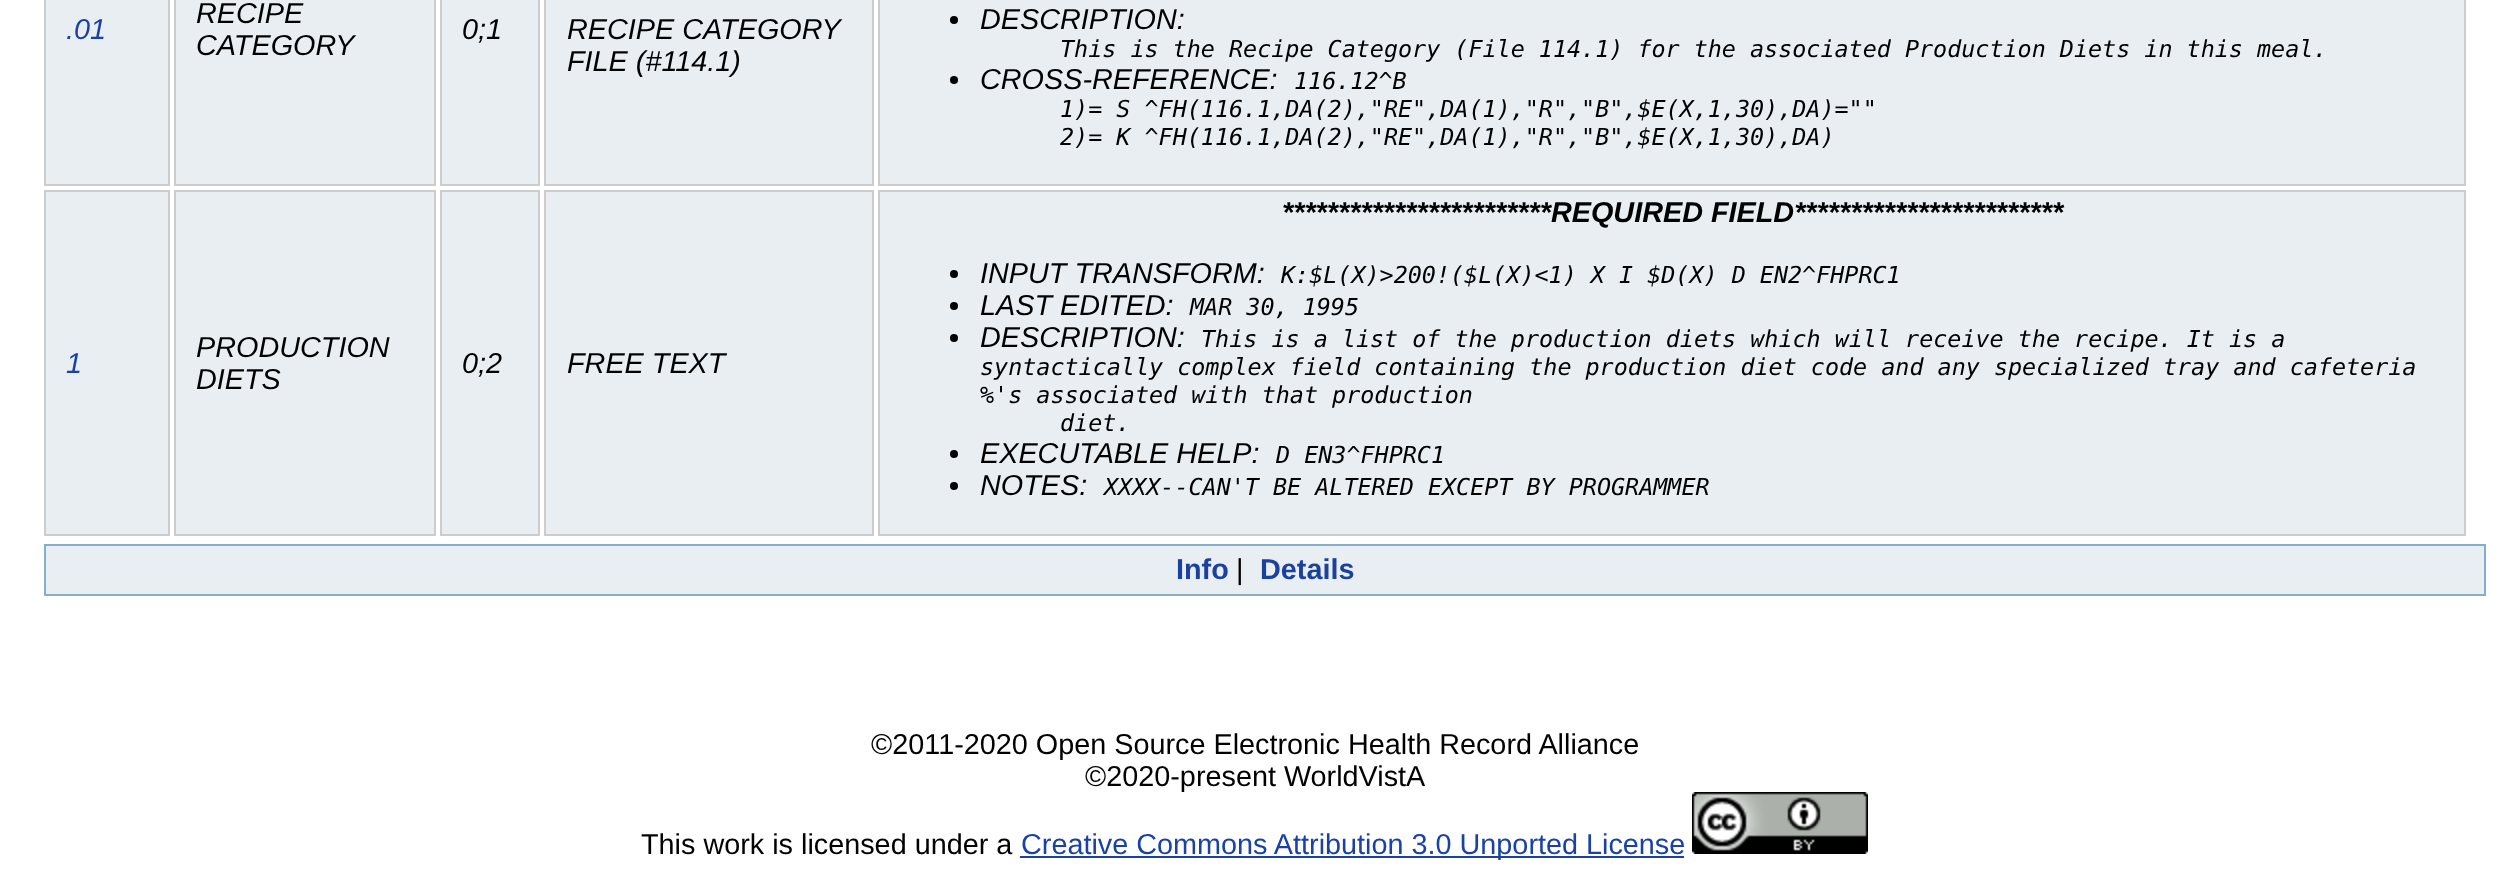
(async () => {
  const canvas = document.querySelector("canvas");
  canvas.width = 2510;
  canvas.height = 875;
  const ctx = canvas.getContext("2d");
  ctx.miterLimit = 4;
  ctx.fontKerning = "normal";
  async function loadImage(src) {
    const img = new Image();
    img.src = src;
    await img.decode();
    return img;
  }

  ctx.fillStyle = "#ffffff";
  ctx.fillRect(0, 0, 2510, 875);
  ctx.fillStyle = "#e8eef2";
  ctx.beginPath();
  ctx.rect(45, -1, 124, 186);
  ctx.fill();
  ctx.strokeStyle = "#cccccc";
  ctx.lineWidth = 2;
  ctx.stroke();
  ctx.beginPath();
  ctx.rect(175, -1, 260, 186);
  ctx.fill();
  ctx.stroke();
  ctx.beginPath();
  ctx.rect(441, -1, 98, 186);
  ctx.fill();
  ctx.stroke();
  ctx.beginPath();
  ctx.rect(545, -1, 328, 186);
  ctx.fill();
  ctx.stroke();
  ctx.beginPath();
  ctx.rect(879, -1, 1586, 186);
  ctx.fill();
  ctx.stroke();
  ctx.fillStyle = "#000000";
  ctx.beginPath();
  ctx.arc(954, 20, 4, 0, Math.PI * 2);
  ctx.fill();
  ctx.beginPath();
  ctx.arc(954, 80, 4, 0, Math.PI * 2);
  ctx.fill();
  ctx.fillStyle = "#e8eef2";
  ctx.beginPath();
  ctx.rect(45, 191, 124, 344);
  ctx.fill();
  ctx.stroke();
  ctx.beginPath();
  ctx.rect(175, 191, 260, 344);
  ctx.fill();
  ctx.stroke();
  ctx.beginPath();
  ctx.rect(441, 191, 98, 344);
  ctx.fill();
  ctx.stroke();
  ctx.beginPath();
  ctx.rect(545, 191, 328, 344);
  ctx.fill();
  ctx.stroke();
  ctx.beginPath();
  ctx.rect(879, 191, 1586, 344);
  ctx.fill();
  ctx.stroke();
  ctx.fillStyle = "#000000";
  ctx.beginPath();
  ctx.arc(954, 274, 4, 0, Math.PI * 2);
  ctx.fill();
  ctx.beginPath();
  ctx.arc(954, 306, 4, 0, Math.PI * 2);
  ctx.fill();
  ctx.beginPath();
  ctx.arc(954, 338, 4, 0, Math.PI * 2);
  ctx.fill();
  ctx.beginPath();
  ctx.arc(954, 454, 4, 0, Math.PI * 2);
  ctx.fill();
  ctx.beginPath();
  ctx.arc(954, 486, 4, 0, Math.PI * 2);
  ctx.fill();
  ctx.fillStyle = "#e8eef2";
  ctx.beginPath();
  ctx.rect(45, 545, 2440, 50);
  ctx.fill();
  ctx.strokeStyle = "#84b0c7";
  ctx.stroke();
  ctx.fillStyle = "#1a41a8";
  ctx.fillRect(1020, 856, 664, 2);
  ctx.drawImage(await loadImage("img/1.png"), 1692, 792, 176, 62);
  ctx.font = "italic 28.8px Liberation Sans";
  ctx.fillText(".01", 66, 39);
  ctx.fillStyle = "#000000";
  for (const [text, x, y] of [
    ["RECIPE", 196, 23],
    ["CATEGORY", 196, 55],
    ["0;1", 462, 39],
    ["RECIPE CATEGORY", 567, 39],
    ["FILE (#114.1)", 567, 71],
    ["DESCRIPTION:", 980, 29],
  ]) {
    ctx.fillText(text, x, y);
  }
  ctx.font = "italic 23.4px DejaVu Sans Mono";
  ctx.fillText("This is the Recipe Category (File 114.1) for the associated Production Diets in this meal.", 1060, 57);
  ctx.font = "italic 28.8px Liberation Sans";
  ctx.fillText("CROSS-REFERENCE:", 980, 89);
  ctx.font = "italic 23.4px DejaVu Sans Mono";
  for (const [text, x, y] of [
    ["116.12^B", 1294, 89],
    ["1)= S ^FH(116.1,DA(2),\"RE\",DA(1),\"R\",\"B\",$E(X,1,30),DA)=\"\"", 1060, 117],
    ["2)= K ^FH(116.1,DA(2),\"RE\",DA(1),\"R\",\"B\",$E(X,1,30),DA)", 1060, 145],
  ]) {
    ctx.fillText(text, x, y);
  }
  ctx.font = "italic 28.8px Liberation Sans";
  ctx.fillStyle = "#1a41a8";
  ctx.fillText("1", 66, 373);
  ctx.fillStyle = "#000000";
  for (const [text, x, y] of [
    ["PRODUCTION", 196, 357],
    ["DIETS", 196, 389],
    ["0;2", 462, 373],
    ["FREE TEXT", 567, 373],
  ]) {
    ctx.fillText(text, x, y);
  }
  ctx.font = "italic bold 28.8px Liberation Sans";
  ctx.fillText("************************REQUIRED FIELD************************", 1282, 222);
  ctx.font = "italic 28.8px Liberation Sans";
  ctx.fillText("INPUT TRANSFORM:", 980, 283);
  ctx.font = "italic 23.4px DejaVu Sans Mono";
  ctx.fillText("K:$L(X)>200!($L(X)<1) X I $D(X) D EN2^FHPRC1", 1281, 283);
  ctx.font = "italic 28.8px Liberation Sans";
  ctx.fillText("LAST EDITED:", 980, 315);
  ctx.font = "italic 23.4px DejaVu Sans Mono";
  ctx.fillText("MAR 30, 1995", 1190, 315);
  ctx.font = "italic 28.8px Liberation Sans";
  ctx.fillText("DESCRIPTION:", 980, 347);
  ctx.font = "italic 23.4px DejaVu Sans Mono";
  for (const [text, x, y] of [
    ["This is a list of the production diets which will receive the recipe. It is a", 1201, 347],
    ["syntactically complex field containing the production diet code and any specialized tray and cafeteria", 980, 375],
    ["%'s associated with that production", 980, 403],
    ["diet.", 1060, 431],
  ]) {
    ctx.fillText(text, x, y);
  }
  ctx.font = "italic 28.8px Liberation Sans";
  ctx.fillText("EXECUTABLE HELP:", 980, 463);
  ctx.font = "italic 23.4px DejaVu Sans Mono";
  ctx.fillText("D EN3^FHPRC1", 1276, 463);
  ctx.font = "italic 28.8px Liberation Sans";
  ctx.fillText("NOTES:", 980, 495);
  ctx.font = "italic 23.4px DejaVu Sans Mono";
  ctx.fillText("XXXX--CAN'T BE ALTERED EXCEPT BY PROGRAMMER", 1104, 495);
  ctx.font = "bold 28.8px Liberation Sans";
  ctx.fillStyle = "#1a419d";
  ctx.fillText("Info", 1176, 579);
  ctx.font = "28.8px Liberation Sans";
  ctx.fillStyle = "#000000";
  ctx.fillText("|", 1236, 579);
  ctx.font = "bold 28.8px Liberation Sans";
  ctx.fillStyle = "#1a419d";
  ctx.fillText("Details", 1260, 579);
  ctx.font = "28.8px Liberation Sans";
  ctx.fillStyle = "#000000";
  for (const [text, x, y] of [
    ["©2011-2020 Open Source Electronic Health Record Alliance", 871, 754],
    ["©2020-present WorldVistA", 1085, 786],
    ["This work is licensed under a", 641, 854],
  ]) {
    ctx.fillText(text, x, y);
  }
  ctx.fillStyle = "#1a41a8";
  ctx.fillText("Creative Commons Attribution 3.0 Unported License", 1021, 854);
})();
